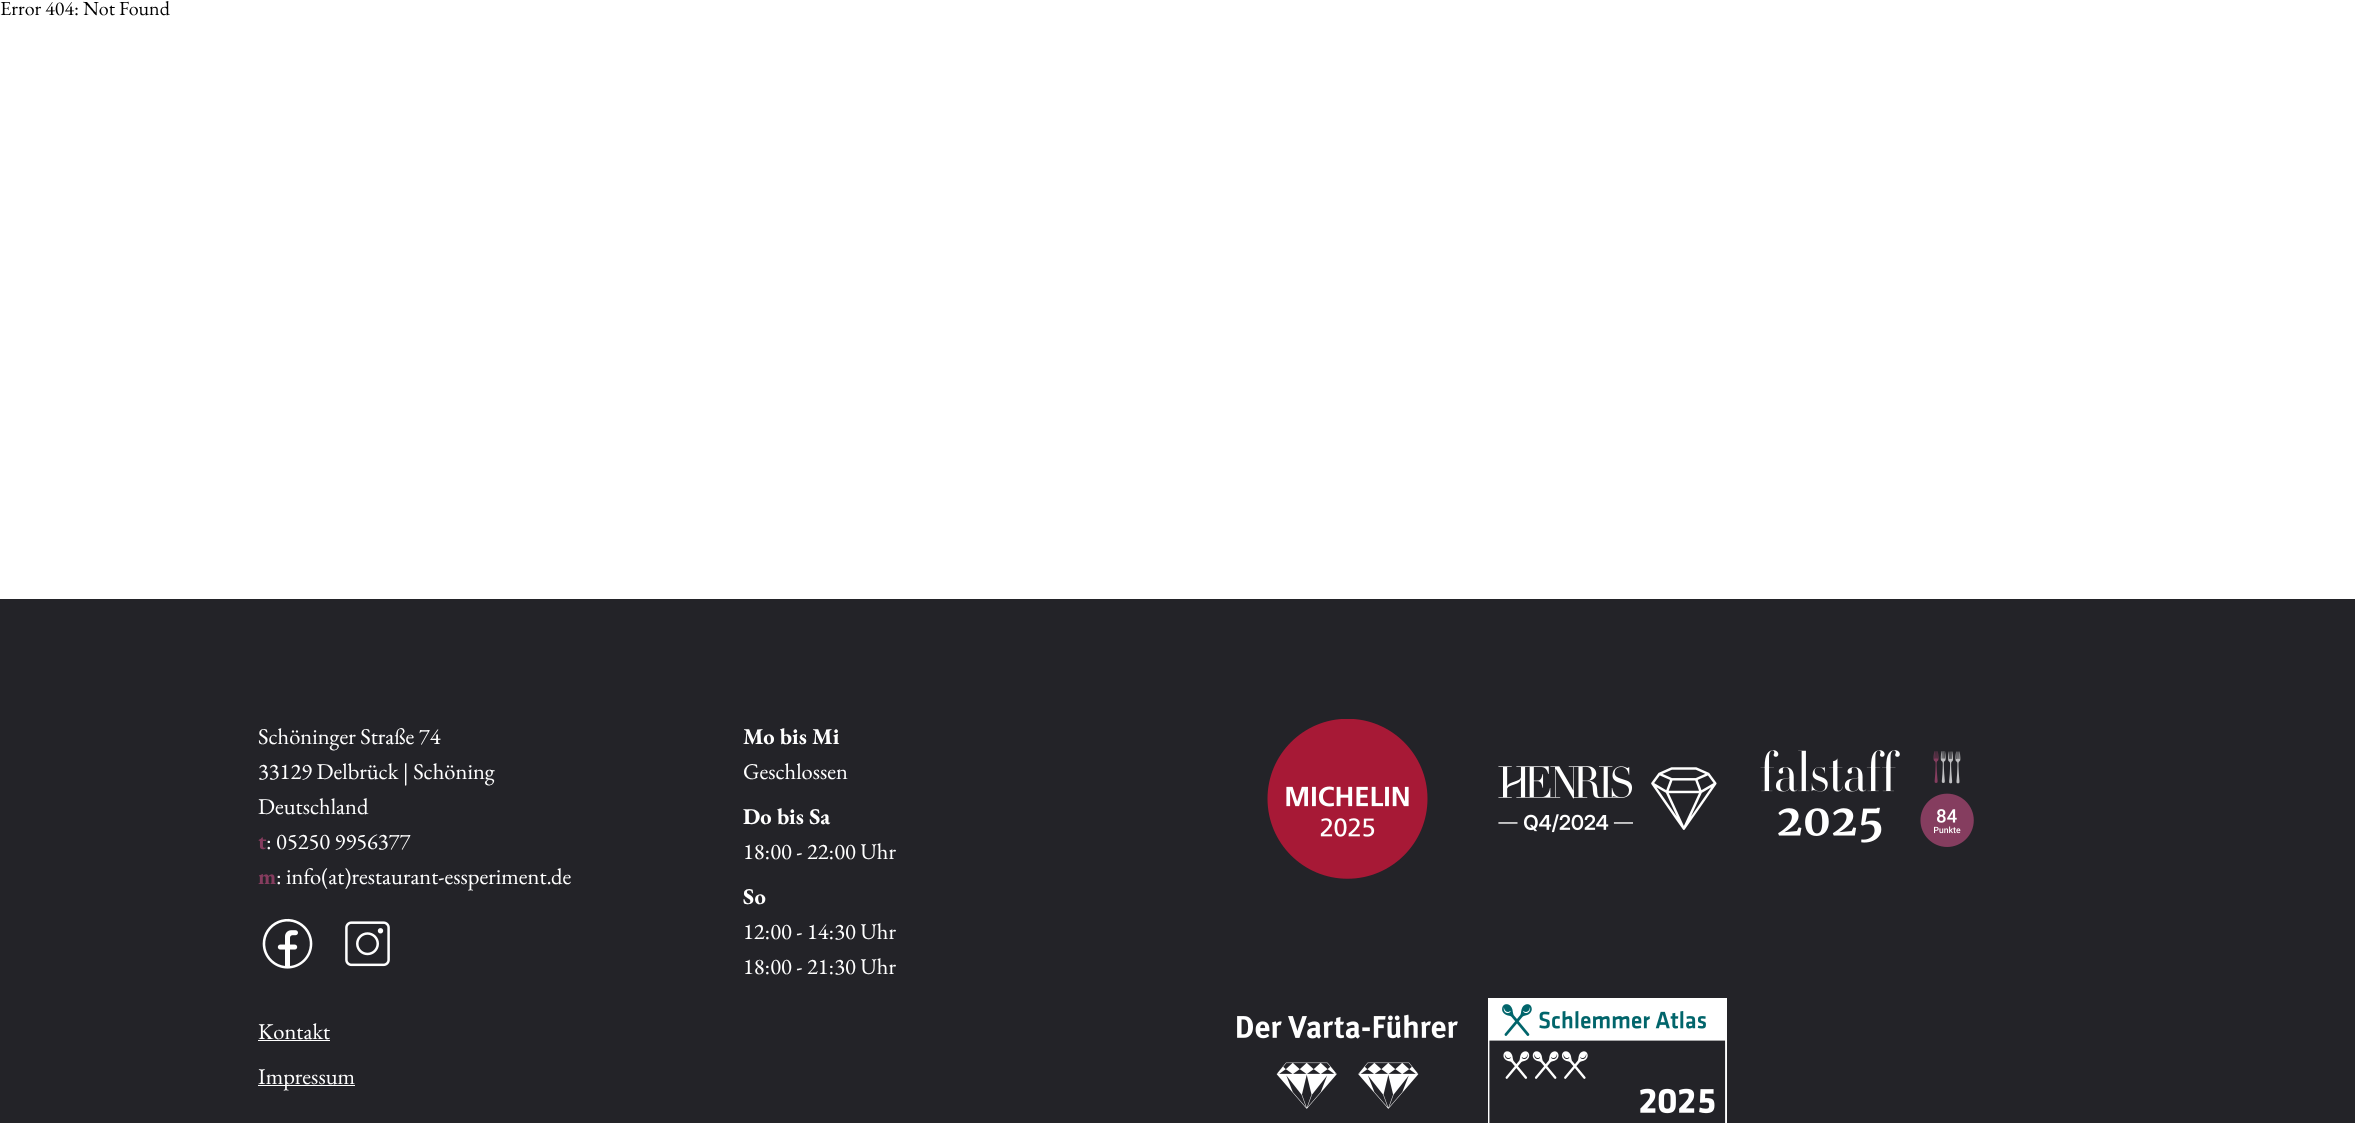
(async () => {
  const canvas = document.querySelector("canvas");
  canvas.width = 2355;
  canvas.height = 1123;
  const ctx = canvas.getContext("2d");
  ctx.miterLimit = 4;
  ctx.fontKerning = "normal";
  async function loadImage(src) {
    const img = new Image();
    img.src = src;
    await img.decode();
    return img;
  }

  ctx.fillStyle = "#ffffff";
  ctx.fillRect(0, 0, 2355, 1123);
  ctx.fillStyle = "#232328";
  ctx.fillRect(0, 599, 2355, 524);
  ctx.drawImage(await loadImage("img/1.png"), 262, 918, 51, 51);
  ctx.drawImage(await loadImage("img/2.png"), 345, 921, 45, 46);
  ctx.fillStyle = "#ffffff";
  ctx.fillRect(258, 1040, 72, 1);
  ctx.fillRect(258, 1085, 97, 1);
  ctx.drawImage(await loadImage("img/3.png"), 1267, 719, 161, 160);
  ctx.drawImage(await loadImage("img/4.png"), 1498, 766, 219, 67);
  ctx.drawImage(await loadImage("img/5.png"), 1760, 750, 214, 97);
  ctx.drawImage(await loadImage("img/6.png"), 1237, 1014, 221, 95);
  ctx.drawImage(await loadImage("img/7.png"), 1488, 998, 239, 125);
  ctx.font = "20px EB Garamond";
  ctx.fillStyle = "#000000";
  ctx.fillText("Error 404: Not Found", 0, 15);
  ctx.font = "22.5px EB Garamond";
  ctx.fillStyle = "#ffffff";
  for (const [text, x, y] of [
    ["Schöninger Straße 74", 258, 744],
    ["33129 Delbrück | Schöning", 258, 779],
    ["Deutschland", 258, 814],
  ]) {
    ctx.fillText(text, x, y);
  }
  ctx.font = "bold 22.5px EB Garamond";
  ctx.fillStyle = "#853c5e";
  ctx.fillText("t", 258, 849);
  ctx.font = "22.5px EB Garamond";
  ctx.fillStyle = "#ffffff";
  ctx.fillText(": 05250 9956377", 266, 849);
  ctx.font = "bold 22.5px EB Garamond";
  ctx.fillStyle = "#853c5e";
  ctx.fillText("m", 258, 884);
  ctx.font = "22.5px EB Garamond";
  ctx.fillStyle = "#ffffff";
  for (const [text, x, y] of [
    [": info(at)restaurant-essperiment.de", 276, 884],
    ["Kontakt", 258, 1039],
    ["Impressum", 258, 1084],
  ]) {
    ctx.fillText(text, x, y);
  }
  ctx.font = "bold 22.5px EB Garamond";
  ctx.fillText("Mo bis Mi", 743, 744);
  ctx.font = "22.5px EB Garamond";
  ctx.fillText("Geschlossen", 743, 779);
  ctx.font = "bold 22.5px EB Garamond";
  ctx.fillText("Do bis Sa", 743, 824);
  ctx.font = "22.5px EB Garamond";
  ctx.fillText("18:00 - 22:00 Uhr", 743, 859);
  ctx.font = "bold 22.5px EB Garamond";
  ctx.fillText("So", 743, 904);
  ctx.font = "22.5px EB Garamond";
  ctx.fillText("12:00 - 14:30 Uhr", 743, 939);
  ctx.fillText("18:00 - 21:30 Uhr", 743, 974);
})();
